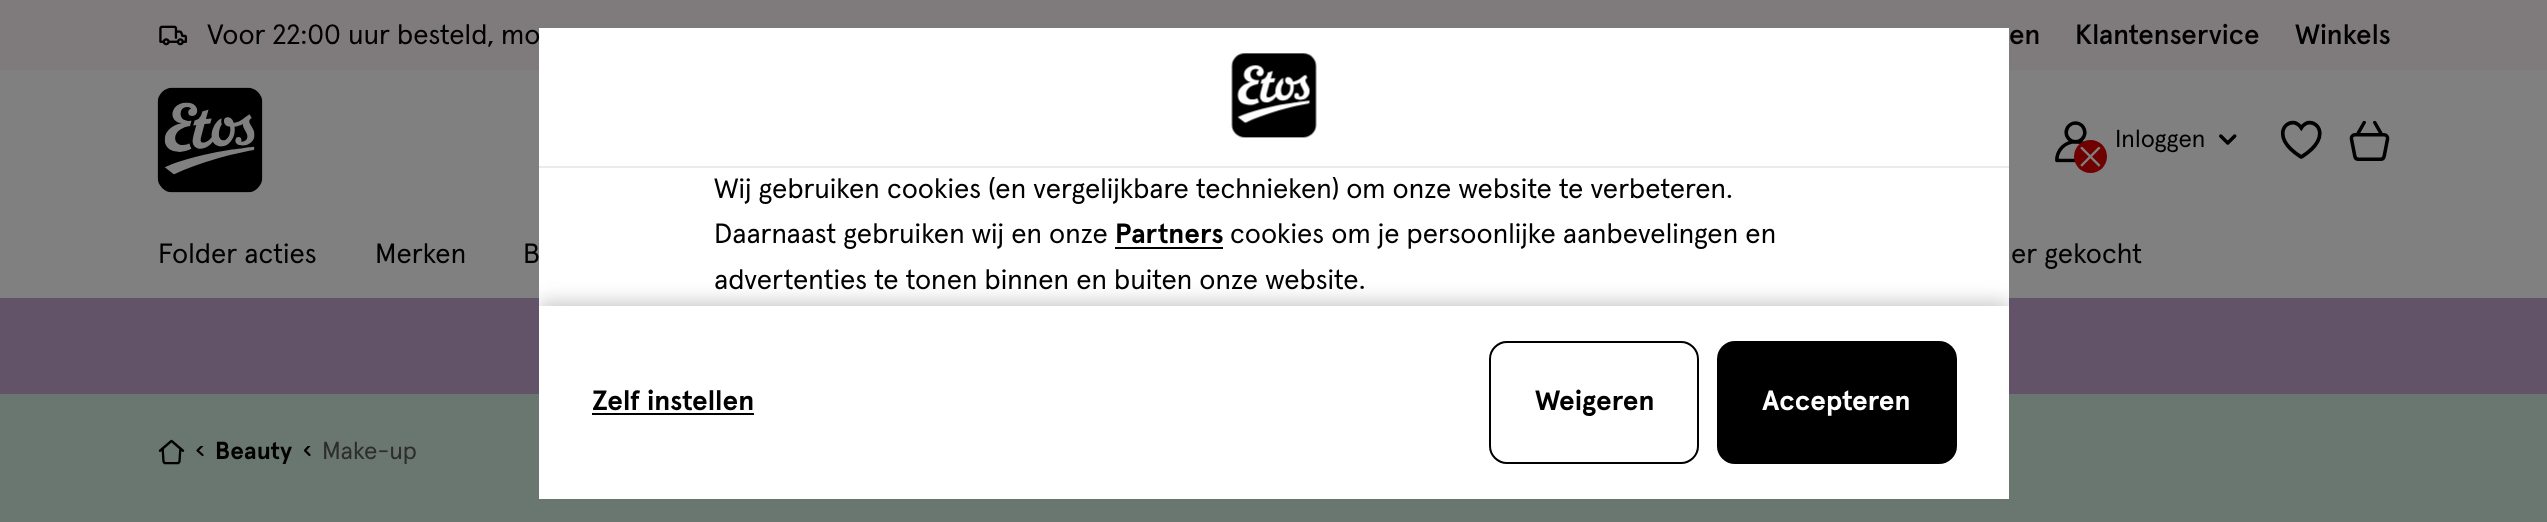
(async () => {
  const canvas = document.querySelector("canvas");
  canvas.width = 2547;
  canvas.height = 522;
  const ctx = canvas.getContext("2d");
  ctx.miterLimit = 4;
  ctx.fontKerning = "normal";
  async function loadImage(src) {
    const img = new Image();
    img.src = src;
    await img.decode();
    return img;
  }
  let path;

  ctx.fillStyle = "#808080";
  ctx.fillRect(0, 0, 2547, 522);
  ctx.fillStyle = "#7f7b7d";
  ctx.fillRect(0, 0, 2547, 70);
  ctx.drawImage(await loadImage("img/1.png"), 159, 25, 29, 21);
  ctx.drawImage(await loadImage("img/2.png"), 157, 87, 106, 106);
  ctx.drawImage(await loadImage("img/3.png"), 2055, 121, 32, 42);
  ctx.fillStyle = "#700101";
  ctx.beginPath();
  ctx.arc(2090.5, 156.5, 16.5, 0, Math.PI * 2);
  ctx.fill();
  ctx.drawImage(await loadImage("img/4.png"), 2080, 146, 21, 21);
  ctx.drawImage(await loadImage("img/5.png"), 2219, 134, 18, 11);
  ctx.drawImage(await loadImage("img/6.png"), 2280, 120, 42, 39);
  ctx.drawImage(await loadImage("img/7.png"), 2349, 120, 41, 41);
  ctx.fillStyle = "#635368";
  ctx.fillRect(0, 298, 2547, 96);
  ctx.fillStyle = "#6a7670";
  ctx.fillRect(0, 394, 2547, 128);
  ctx.drawImage(await loadImage("img/8.png"), 158, 439, 27, 26);
  ctx.save();
  ctx.beginPath();
  ctx.rect(194, 446, 13, 13);
  ctx.clip();
  path = new Path2D("M202.5 445.5L197.5 450.5L202.5 455");
  ctx.strokeStyle = "#000000";
  ctx.lineWidth = 2.2;
  ctx.lineCap = "round";
  ctx.lineJoin = "round";
  ctx.stroke(path);
  ctx.restore();
  ctx.save();
  ctx.beginPath();
  ctx.rect(301, 446, 12, 13);
  ctx.clip();
  path = new Path2D("M309.5 445.5L305 450.5L309.5 455");
  ctx.strokeStyle = "#000000";
  ctx.lineWidth = 2.2;
  ctx.lineCap = "round";
  ctx.lineJoin = "round";
  ctx.stroke(path);
  ctx.restore();
  ctx.fillStyle = "#ffffff";
  ctx.fillRect(539, 28, 1470, 471);
  ctx.fillStyle = "#ebebeb";
  ctx.fillRect(539, 166, 1470, 2);
  ctx.drawImage(await loadImage("img/9.png"), 1231, 53, 86, 85);
  ctx.fillStyle = "#000000";
  ctx.fillRect(1115, 247, 108, 2);
  ctx.save();
  ctx.beginPath();
  ctx.rect(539, 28, 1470, 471);
  ctx.clip();
  path = new Path2D("M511 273H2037V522H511ZM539 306H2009V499H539Z");
  ctx.clip(path, "evenodd");
  ctx.fillStyle = "#cccccc";
  ctx.filter = "blur(9px)";
  ctx.beginPath();
  ctx.rect(539, 301, 1470, 193);
  ctx.fill();
  ctx.filter = "none";
  ctx.restore();
  ctx.fillRect(592, 413, 162, 2);
  ctx.beginPath();
  ctx.roundRect(1490, 342, 208, 121, 17);
  ctx.strokeStyle = "#000000";
  ctx.lineWidth = 2;
  ctx.stroke();
  ctx.beginPath();
  ctx.roundRect(1717, 341, 240, 123, 18);
  ctx.fill();
  ctx.font = "28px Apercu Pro";
  ctx.fillText("Voor 22:00 uur besteld, mo", 207, 44);
  ctx.font = "500 28px Apercu Pro";
  for (const [text, x, y] of [
    ["en", 2009, 44],
    ["Klantenservice", 2075, 44],
    ["Winkels", 2295, 44],
  ]) {
    ctx.fillText(text, x, y);
  }
  ctx.font = "24.5px Apercu Pro";
  ctx.fillText("Inloggen", 2115, 147);
  ctx.font = "28px Apercu Pro";
  for (const [text, x, y] of [
    ["Folder acties", 158, 263],
    ["Merken", 375, 263],
    ["B", 523, 263],
    ["er gekocht", 2011, 263],
  ]) {
    ctx.fillText(text, x, y);
  }
  ctx.font = "bold 24.5px Apercu Pro";
  ctx.fillText("Beauty", 215, 459);
  ctx.font = "24.5px Apercu Pro";
  ctx.fillStyle = "#2d2d2d";
  ctx.fillText("Make-up", 322, 459);
  ctx.font = "28px Apercu Pro";
  ctx.fillStyle = "#000000";
  ctx.fillText("Wij gebruiken cookies (en vergelijkbare technieken) om onze website te verbeteren.", 714, 198);
  ctx.fillText("Daarnaast gebruiken wij en onze", 714, 243);
  ctx.font = "bold 28px Apercu Pro";
  ctx.fillText("Partners", 1115, 243);
  ctx.font = "28px Apercu Pro";
  ctx.fillText("cookies om je persoonlijke aanbevelingen en", 1230, 243);
  ctx.fillText("advertenties te tonen binnen en buiten onze website.", 714, 289);
  ctx.font = "bold 28px Apercu Pro";
  ctx.fillText("Zelf instellen", 592, 410);
  ctx.fillText("Weigeren", 1535, 410);
  ctx.fillStyle = "#ffffff";
  ctx.fillText("Accepteren", 1762, 410);
})();
